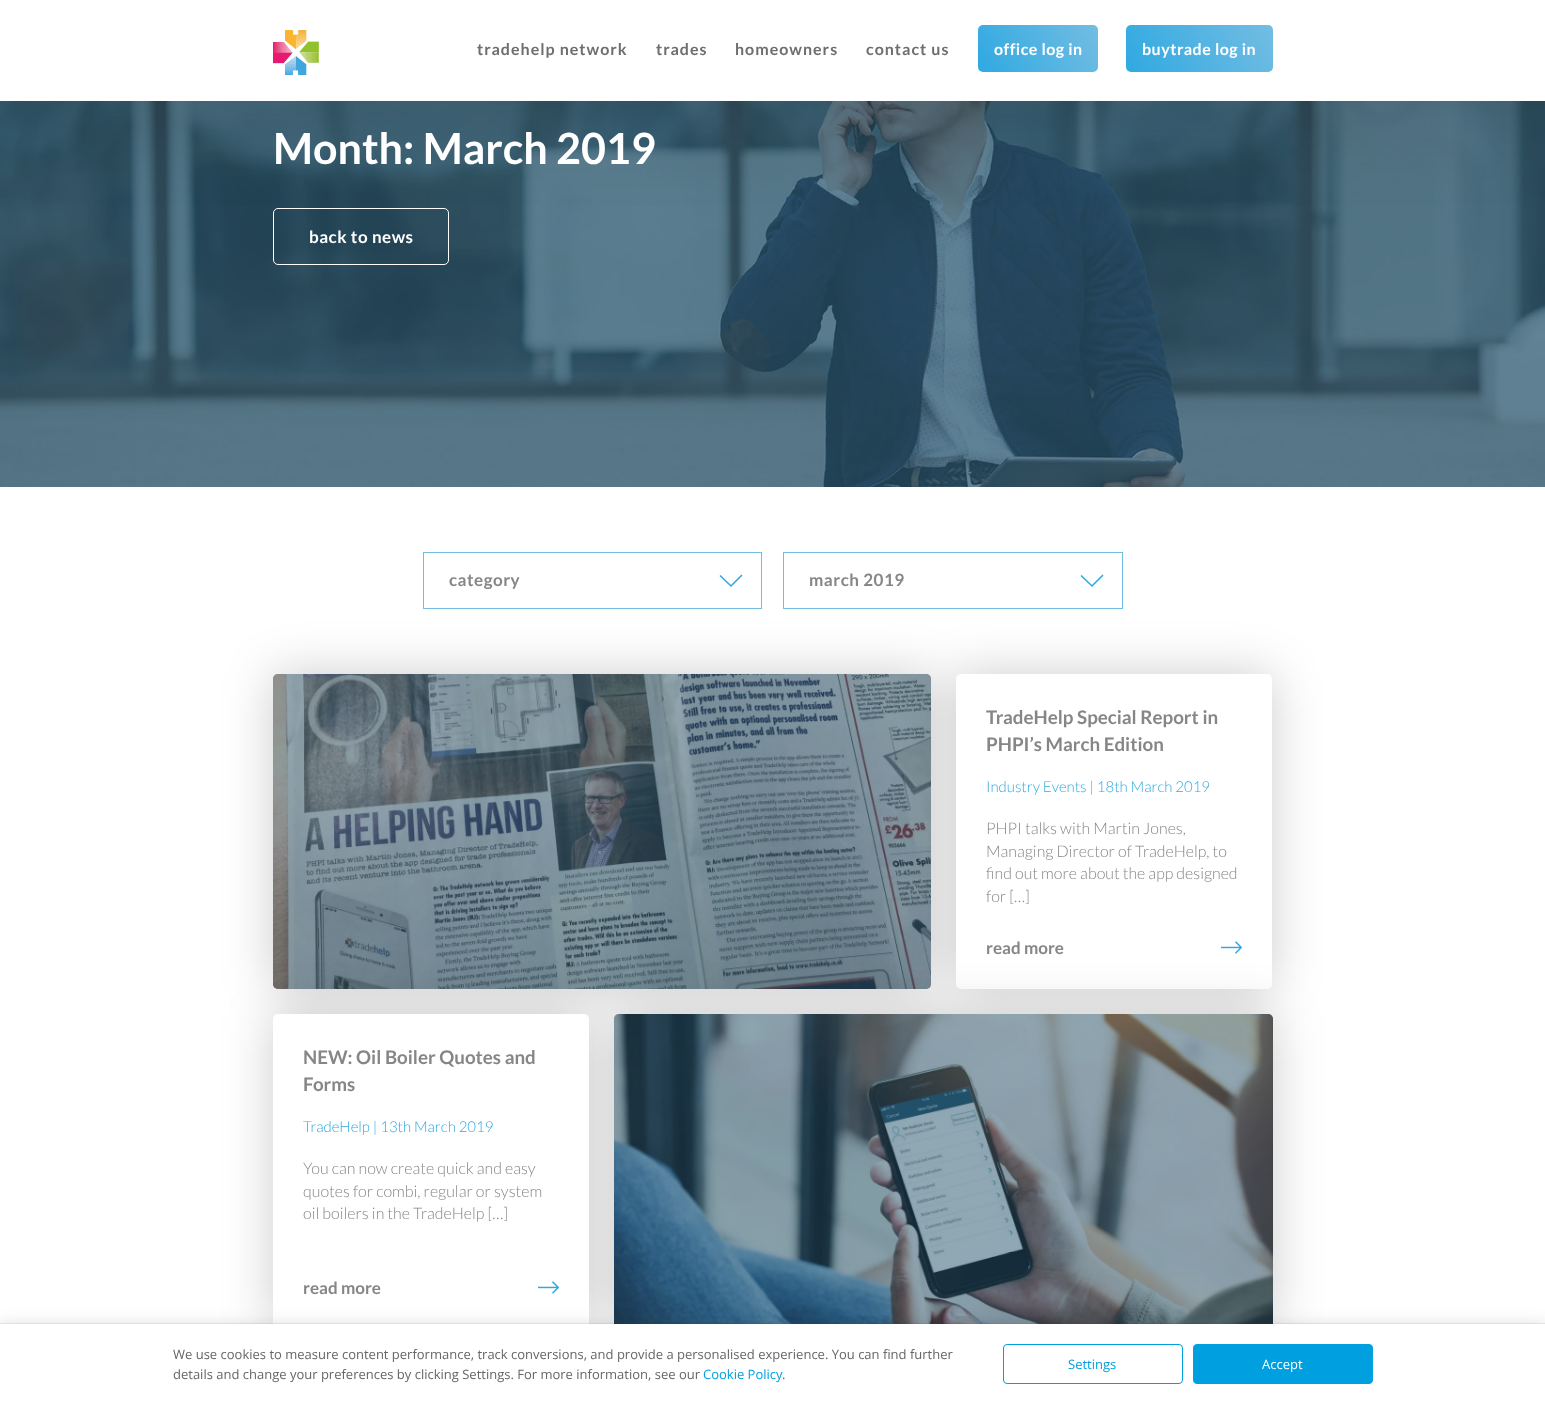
(async () => {
  const canvas = document.querySelector("canvas");
  canvas.width = 1545;
  canvas.height = 1404;
  const ctx = canvas.getContext("2d");
  ctx.miterLimit = 4;
  ctx.fontKerning = "normal";
  async function loadImage(src) {
    const img = new Image();
    img.src = src;
    await img.decode();
    return img;
  }
  let gradient, path;

  ctx.fillStyle = "#ffffff";
  ctx.fillRect(0, 0, 1545, 1404);
  ctx.fillStyle = "#21506a";
  ctx.fillRect(0, 101, 1545, 386);
  ctx.drawImage(await loadImage("img/2.png"), 0, 101, 1545, 386);
  ctx.beginPath();
  ctx.roundRect(273.5, 208.5, 175, 56, 4.5);
  ctx.strokeStyle = "#ffffff";
  ctx.stroke();
  ctx.fillStyle = "rgba(0, 0, 0, 0.2)";
  ctx.filter = "blur(50px)";
  ctx.beginPath();
  ctx.rect(0, 0, 1545, 101);
  ctx.fill();
  ctx.filter = "none";
  ctx.fillStyle = "#ffffff";
  ctx.fillRect(0, 0, 1545, 101);
  ctx.drawImage(await loadImage("img/1.png"), 273, 30, 46, 45);
  gradient = ctx.createLinearGradient(983, 80, 1093, 17);
  gradient.addColorStop(0, "#2fa9e1");
  gradient.addColorStop(1, "#73bde3");
  ctx.fillStyle = gradient;
  ctx.beginPath();
  ctx.roundRect(978, 25, 120, 47, 5);
  ctx.fill();
  gradient = ctx.createLinearGradient(1134, 86, 1265, 11);
  gradient.addColorStop(0, "#2fa9e1");
  gradient.addColorStop(1, "#73bde3");
  ctx.fillStyle = gradient;
  ctx.beginPath();
  ctx.roundRect(1126, 25, 147, 47, 5);
  ctx.fill();
  ctx.strokeStyle = "#73bde3";
  ctx.strokeRect(423.5, 552.5, 338, 56);
  path = new Path2D("M742 575L731 586L720 575.5");
  ctx.strokeStyle = "#2ea9e1";
  ctx.lineWidth = 1.6;
  ctx.stroke(path);
  ctx.strokeStyle = "#73bde3";
  ctx.lineWidth = 1;
  ctx.strokeRect(783.5, 552.5, 339, 56);
  path = new Path2D("M1103 575L1092 586L1081 575.5");
  ctx.strokeStyle = "#2ea9e1";
  ctx.lineWidth = 1.6;
  ctx.stroke(path);
  ctx.fillStyle = "rgba(0, 0, 0, 0.2)";
  ctx.filter = "blur(25px)";
  ctx.beginPath();
  ctx.roundRect(273, 674, 658, 315, 5);
  ctx.fill();
  ctx.filter = "none";
  ctx.fillStyle = "#22506a";
  ctx.beginPath();
  ctx.roundRect(273, 674, 658, 315, 5);
  ctx.fill();
  ctx.drawImage(await loadImage("img/3.png"), 273, 674, 658, 315);
  ctx.fillStyle = "rgba(0, 0, 0, 0.2)";
  ctx.filter = "blur(25px)";
  ctx.beginPath();
  ctx.roundRect(956, 674, 316, 315, 5);
  ctx.fill();
  ctx.filter = "none";
  ctx.fillStyle = "#ffffff";
  ctx.beginPath();
  ctx.roundRect(956, 674, 316, 315, 5);
  ctx.fill();
  ctx.drawImage(await loadImage("img/4.png"), 1221, 941, 21, 13);
  ctx.fillStyle = "rgba(0, 0, 0, 0.2)";
  ctx.filter = "blur(25px)";
  ctx.beginPath();
  ctx.roundRect(614, 1014, 659, 315, 5);
  ctx.fill();
  ctx.filter = "none";
  ctx.fillStyle = "#22506a";
  ctx.beginPath();
  ctx.roundRect(614, 1014, 659, 315, 5);
  ctx.fill();
  ctx.drawImage(await loadImage("img/5.png"), 614, 1014, 659, 310);
  ctx.fillStyle = "rgba(0, 0, 0, 0.2)";
  ctx.filter = "blur(25px)";
  ctx.beginPath();
  ctx.roundRect(273, 1014, 316, 315, 5);
  ctx.fill();
  ctx.filter = "none";
  ctx.fillStyle = "#ffffff";
  ctx.beginPath();
  ctx.roundRect(273, 1014, 316, 315, 5);
  ctx.fill();
  ctx.drawImage(await loadImage("img/4.png"), 538, 1281, 21, 13);
  ctx.fillStyle = "rgba(36, 47, 66, 0.31)";
  ctx.filter = "blur(10px)";
  ctx.beginPath();
  ctx.rect(-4, 1330, 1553, 68);
  ctx.fill();
  ctx.filter = "none";
  ctx.strokeStyle = "rgba(36, 47, 66, 0.08)";
  ctx.lineWidth = 1;
  ctx.strokeRect(-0.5, 1323.5, 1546, 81);
  ctx.fillStyle = "#ffffff";
  ctx.fillRect(0, 1324, 1545, 80);
  ctx.beginPath();
  ctx.roundRect(1003.5, 1344.5, 179, 39, 3.5);
  ctx.strokeStyle = "#009fdf";
  ctx.stroke();
  ctx.fillStyle = "#009fdf";
  ctx.beginPath();
  ctx.roundRect(1193.5, 1344.5, 179, 39, 3.5);
  ctx.fill();
  ctx.stroke();
  ctx.letterSpacing = "1px";
  ctx.font = "bold 16px Lato";
  ctx.fillStyle = "#6e6e6e";
  for (const [text, x, y] of [
    ["tradehelp network", 477, 55],
    ["trades", 656, 55],
    ["homeowners", 735, 55],
    ["contact us", 866, 55],
  ]) {
    ctx.fillText(text, x, y);
  }
  ctx.letterSpacing = "0.5px";
  ctx.fillStyle = "#ffffff";
  ctx.fillText("office log in", 994, 55);
  ctx.fillText("buytrade log in", 1142, 55);
  ctx.letterSpacing = "0px";
  ctx.font = "bold 43px Lato";
  ctx.fillText("Month: March 2019", 273, 164);
  ctx.letterSpacing = "0.5px";
  ctx.font = "bold 17px Lato";
  ctx.fillText("back to news", 309, 243);
  ctx.fillStyle = "#868686";
  ctx.fillText("category", 449, 586);
  ctx.fillText("march 2019", 809, 586);
  ctx.letterSpacing = "0px";
  ctx.font = "bold 18.75px Lato";
  ctx.fillText("TradeHelp Special Report in", 986, 724);
  ctx.fillText("PHPI’s March Edition", 986, 751);
  ctx.font = "300 15px Lato";
  ctx.fillStyle = "#2fa9e1";
  ctx.fillText("Industry Events | 18th March 2019", 986, 792);
  ctx.font = "300 16px Lato";
  ctx.fillStyle = "#868686";
  for (const [text, x, y] of [
    ["PHPI talks with Martin Jones,", 986, 834],
    ["Managing Director of TradeHelp, to", 986, 857],
    ["find out more about the app designed", 986, 879],
    ["for […]", 986, 902],
  ]) {
    ctx.fillText(text, x, y);
  }
  ctx.font = "bold 17px Lato";
  ctx.fillText("read more", 986, 954);
  ctx.font = "bold 18.75px Lato";
  ctx.fillText("NEW: Oil Boiler Quotes and", 303, 1064);
  ctx.fillText("Forms", 303, 1091);
  ctx.font = "300 15px Lato";
  ctx.fillStyle = "#2fa9e1";
  ctx.fillText("TradeHelp | 13th March 2019", 303, 1132);
  ctx.font = "300 16px Lato";
  ctx.fillStyle = "#868686";
  for (const [text, x, y] of [
    ["You can now create quick and easy", 303, 1174],
    ["quotes for combi, regular or system", 303, 1197],
    ["oil boilers in the TradeHelp […]", 303, 1219],
  ]) {
    ctx.fillText(text, x, y);
  }
  ctx.font = "bold 17px Lato";
  ctx.fillText("read more", 303, 1294);
  ctx.font = "13px Open Sans";
  ctx.fillStyle = "#666666";
  ctx.fillText("We use cookies to measure content performance, track conversions, and provide a personalised experience. You can find further", 173, 1359);
  ctx.fillText("details and change your preferences by clicking Settings. For more information, see our", 173, 1379);
  ctx.fillStyle = "#009fdf";
  ctx.fillText("Cookie Policy", 703, 1379);
  ctx.fillStyle = "#666666";
  ctx.fillText(".", 782, 1379);
  ctx.fillStyle = "#009fdf";
  ctx.fillText("Settings", 1068, 1369);
  ctx.fillStyle = "#ffffff";
  ctx.fillText("Accept", 1262, 1369);
})();
